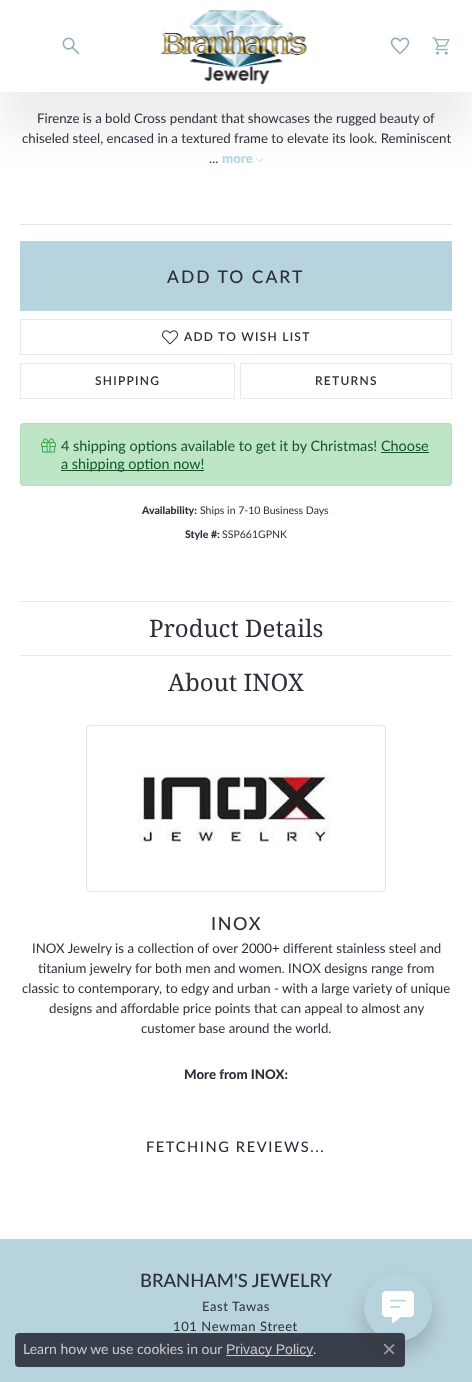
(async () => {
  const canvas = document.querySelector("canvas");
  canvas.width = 472;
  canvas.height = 1382;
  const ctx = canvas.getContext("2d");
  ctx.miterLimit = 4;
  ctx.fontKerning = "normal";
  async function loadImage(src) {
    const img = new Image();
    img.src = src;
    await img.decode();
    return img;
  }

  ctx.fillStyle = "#b7d3de";
  ctx.fillRect(0, 0, 472, 1382);
  ctx.fillStyle = "#ffffff";
  ctx.fillRect(0, 92, 472, 1147);
  ctx.drawImage(await loadImage("img/5.png"), 256, 158, 7, 4);
  ctx.fillStyle = "rgba(57, 64, 66, 0.1)";
  ctx.filter = "blur(20px)";
  ctx.beginPath();
  ctx.rect(0, 40, 472, 92);
  ctx.fill();
  ctx.filter = "none";
  ctx.fillStyle = "#ffffff";
  ctx.fillRect(0, 0, 472, 92);
  ctx.drawImage(await loadImage("img/1.png"), 62, 37, 18, 18);
  ctx.drawImage(await loadImage("img/2.png"), 157, 10, 150, 74);
  ctx.drawImage(await loadImage("img/3.png"), 390, 37, 20, 18);
  ctx.drawImage(await loadImage("img/4.png"), 432, 37, 18, 18);
  ctx.fillStyle = "#dee5e7";
  ctx.fillRect(20, 224, 432, 1);
  ctx.fillStyle = "#b7d3de";
  ctx.fillRect(20, 241, 432, 70);
  ctx.strokeStyle = "#e3ebee";
  ctx.strokeRect(20.5, 319.5, 431, 35);
  ctx.drawImage(await loadImage("img/6.png"), 162, 330, 16, 15);
  ctx.strokeRect(20.5, 363.5, 214, 35);
  ctx.strokeRect(240.5, 363.5, 211, 35);
  ctx.fillStyle = "#bfe5c7";
  ctx.beginPath();
  ctx.roundRect(20, 423, 432, 63, 4);
  ctx.fill();
  ctx.beginPath();
  ctx.roundRect(20.5, 423.5, 431, 62, 3.5);
  ctx.strokeStyle = "rgba(40, 167, 69, 0.1)";
  ctx.stroke();
  ctx.drawImage(await loadImage("img/7.png"), 41, 438, 15, 15);
  for (const [x, y, w, h, color] of [
    [381, 452, 48, 1, "#145523"],
    [61, 470, 143, 1, "#145523"],
    [20, 601, 432, 1, "#e3ebee"],
    [20, 655, 432, 1, "#e3ebee"],
  ]) {
    ctx.fillStyle = color;
    ctx.fillRect(x, y, w, h);
  }
  ctx.beginPath();
  ctx.roundRect(86.5, 725.5, 299, 166, 3.5);
  ctx.strokeStyle = "#dbe9ef";
  ctx.stroke();
  ctx.drawImage(await loadImage("img/8.png"), 138, 770, 192, 72);
  ctx.fillStyle = "rgba(0, 0, 0, 0.18)";
  ctx.filter = "blur(9.5px)";
  ctx.beginPath();
  ctx.roundRect(364, 1285, 68, 68, 34);
  ctx.fill();
  ctx.filter = "none";
  ctx.fillStyle = "#b7d3de";
  ctx.beginPath();
  ctx.arc(398, 1307, 34, 0, Math.PI * 2);
  ctx.fill();
  ctx.fillStyle = "rgba(43, 47, 58, 0.9)";
  ctx.beginPath();
  ctx.roundRect(15, 1333, 390, 34, 4);
  ctx.fill();
  ctx.fillStyle = "#cccccc";
  ctx.fillRect(226, 1355, 87, 1);
  ctx.drawImage(await loadImage("img/9.png"), 383, 1343, 12, 12);
  ctx.drawImage(await loadImage("img/10.png"), 382, 1291, 32, 32);
  ctx.font = "13.25px Lato";
  ctx.fillStyle = "#2b2f3a";
  for (const [text, x, y] of [
    ["Firenze is a bold Cross pendant that showcases the rugged beauty of", 37, 123],
    ["chiseled steel, encased in a textured frame to elevate its look. Reminiscent", 22, 143],
    ["...", 209, 163],
  ]) {
    ctx.fillText(text, x, y);
  }
  ctx.font = "900 13.25px Lato";
  ctx.fillStyle = "#b7d3de";
  ctx.fillText("more", 222, 163);
  ctx.letterSpacing = "2px";
  ctx.font = "500 17.5px Lato";
  ctx.fillStyle = "#2b2f3a";
  ctx.fillText("ADD TO CART", 167, 283);
  ctx.letterSpacing = "1.25px";
  ctx.font = "600 12px Lato";
  for (const [text, x, y] of [
    ["ADD TO WISH LIST", 184, 341],
    ["SHIPPING", 95, 385],
    ["RETURNS", 315, 385],
  ]) {
    ctx.fillText(text, x, y);
  }
  ctx.letterSpacing = "0px";
  ctx.font = "14.4px Lato";
  ctx.fillStyle = "#145523";
  ctx.fillText("4 shipping options available to get it by Christmas! Choose", 61, 451);
  ctx.fillText("a shipping option now!", 61, 469);
  ctx.font = "900 10.5px Lato";
  ctx.fillStyle = "#2b2f3a";
  ctx.fillText("Availability:", 142, 514);
  ctx.font = "10.5px Lato";
  ctx.fillText("Ships in 7-10 Business Days", 200, 514);
  ctx.font = "900 10.5px Lato";
  ctx.fillText("Style #:", 185, 538);
  ctx.font = "10.5px Lato";
  ctx.fillText("SSP661GPNK", 222, 538);
  ctx.font = "24px Droid Serif";
  ctx.fillText("Product Details", 149, 637);
  ctx.fillText("About INOX", 168, 691);
  ctx.letterSpacing = "1.6px";
  ctx.font = "500 18px Lato";
  ctx.fillText("INOX", 211, 930);
  ctx.letterSpacing = "0px";
  ctx.font = "13.25px Lato";
  for (const [text, x, y] of [
    ["INOX Jewelry is a collection of over 2000+ different stainless steel and", 32, 953],
    ["titanium jewelry for both men and women. INOX designs range from", 38, 973],
    ["classic to contemporary, to edgy and urban - with a large variety of unique", 22, 993],
    ["designs and affordable price points that can appeal to almost any", 49, 1013],
    ["customer base around the world.", 141, 1033],
  ]) {
    ctx.fillText(text, x, y);
  }
  ctx.font = "900 13.25px Lato";
  ctx.fillText("More from INOX:", 184, 1079);
  ctx.letterSpacing = "1.6px";
  ctx.font = "500 14.6px Lato";
  ctx.fillText("FETCHING REVIEWS...", 146, 1152);
  ctx.letterSpacing = "0px";
  ctx.font = "500 18.4px Lato";
  ctx.fillText("BRANHAM'S JEWELRY", 140, 1287);
  ctx.letterSpacing = "0.6px";
  ctx.font = "13px Lato";
  ctx.fillText("East Tawas", 202, 1311);
  ctx.fillText("101 Newman Street", 173, 1331);
  ctx.letterSpacing = "0px";
  ctx.font = "14px Lato";
  ctx.fillStyle = "#cccccc";
  ctx.fillText("Learn how we use cookies in our", 23, 1354);
  ctx.font = "14px Liberation Sans";
  ctx.fillText("Privacy Policy", 226, 1354);
  ctx.font = "14px Lato";
  ctx.fillText(".", 313, 1354);
})();
